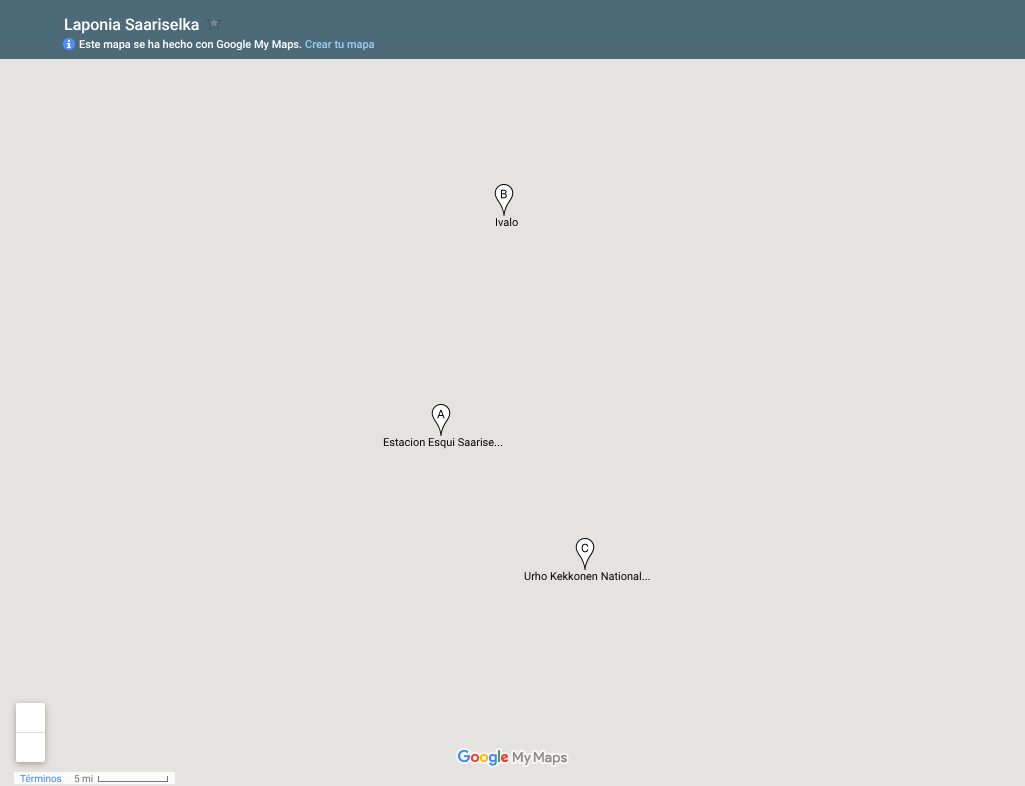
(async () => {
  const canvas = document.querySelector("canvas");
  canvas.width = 1025;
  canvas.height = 786;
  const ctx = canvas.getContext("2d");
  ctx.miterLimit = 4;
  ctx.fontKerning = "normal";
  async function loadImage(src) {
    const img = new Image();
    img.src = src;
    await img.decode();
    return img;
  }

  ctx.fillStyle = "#e5e3df";
  ctx.fillRect(0, 0, 1025, 786);
  ctx.fillStyle = "#4d6a79";
  ctx.fillRect(0, 0, 1025, 59);
  ctx.drawImage(await loadImage("img/1.png"), 206, 19, 16, 11);
  ctx.drawImage(await loadImage("img/2.png"), 63, 38, 12, 12);
  ctx.drawImage(await loadImage("img/3.png"), 494, 184, 20, 32);
  ctx.drawImage(await loadImage("img/4.png"), 431, 404, 20, 32);
  ctx.drawImage(await loadImage("img/5.png"), 575, 538, 20, 32);
  ctx.fillStyle = "rgba(0, 0, 0, 0.3)";
  ctx.filter = "blur(3px)";
  ctx.beginPath();
  ctx.roundRect(16, 705, 29, 59, 2);
  ctx.fill();
  ctx.filter = "none";
  ctx.fillStyle = "#ffffff";
  ctx.beginPath();
  ctx.roundRect(16, 703, 29, 59, 2);
  ctx.fill();
  ctx.fillStyle = "#dddddd";
  ctx.fillRect(16, 732, 29, 1);
  ctx.drawImage(await loadImage("img/6.png"), 456, 748, 113, 20);
  for (const [x, y, w, h, color] of [
    [14, 772, 161, 12, "#fbfbfa"],
    [98, 781, 70, 1, "#777777"],
    [98, 776, 1, 6, "#777777"],
    [167, 776, 1, 6, "#777777"],
  ]) {
    ctx.fillStyle = color;
    ctx.fillRect(x, y, w, h);
  }
  ctx.font = "500 16px Roboto";
  ctx.fillStyle = "#ffffff";
  ctx.fillText("Laponia Saariselka", 64, 30);
  ctx.save();
  ctx.beginPath();
  ctx.rect(20, 11, 868, 39);
  ctx.clip();
  ctx.font = "500 11px Roboto";
  ctx.fillText("Este mapa se ha hecho con Google My Maps.", 79, 48);
  ctx.restore();
  ctx.font = "500 11px Roboto";
  ctx.fillStyle = "#9ecef5";
  ctx.fillText("Crear tu mapa", 305, 48);
  ctx.font = "11px Roboto";
  ctx.fillStyle = "#000000";
  for (const [text, x, y] of [
    ["Ivalo", 495, 226],
    ["Estacion Esqui Saarise...", 383, 446],
    ["Urho Kekkonen National...", 524, 580],
  ]) {
    ctx.fillText(text, x, y);
  }
  ctx.font = "10px Roboto";
  ctx.fillStyle = "#4285f4";
  ctx.fillText("Términos", 20, 782);
  ctx.fillStyle = "#777777";
  ctx.fillText("5 mi", 74, 782);
})();
